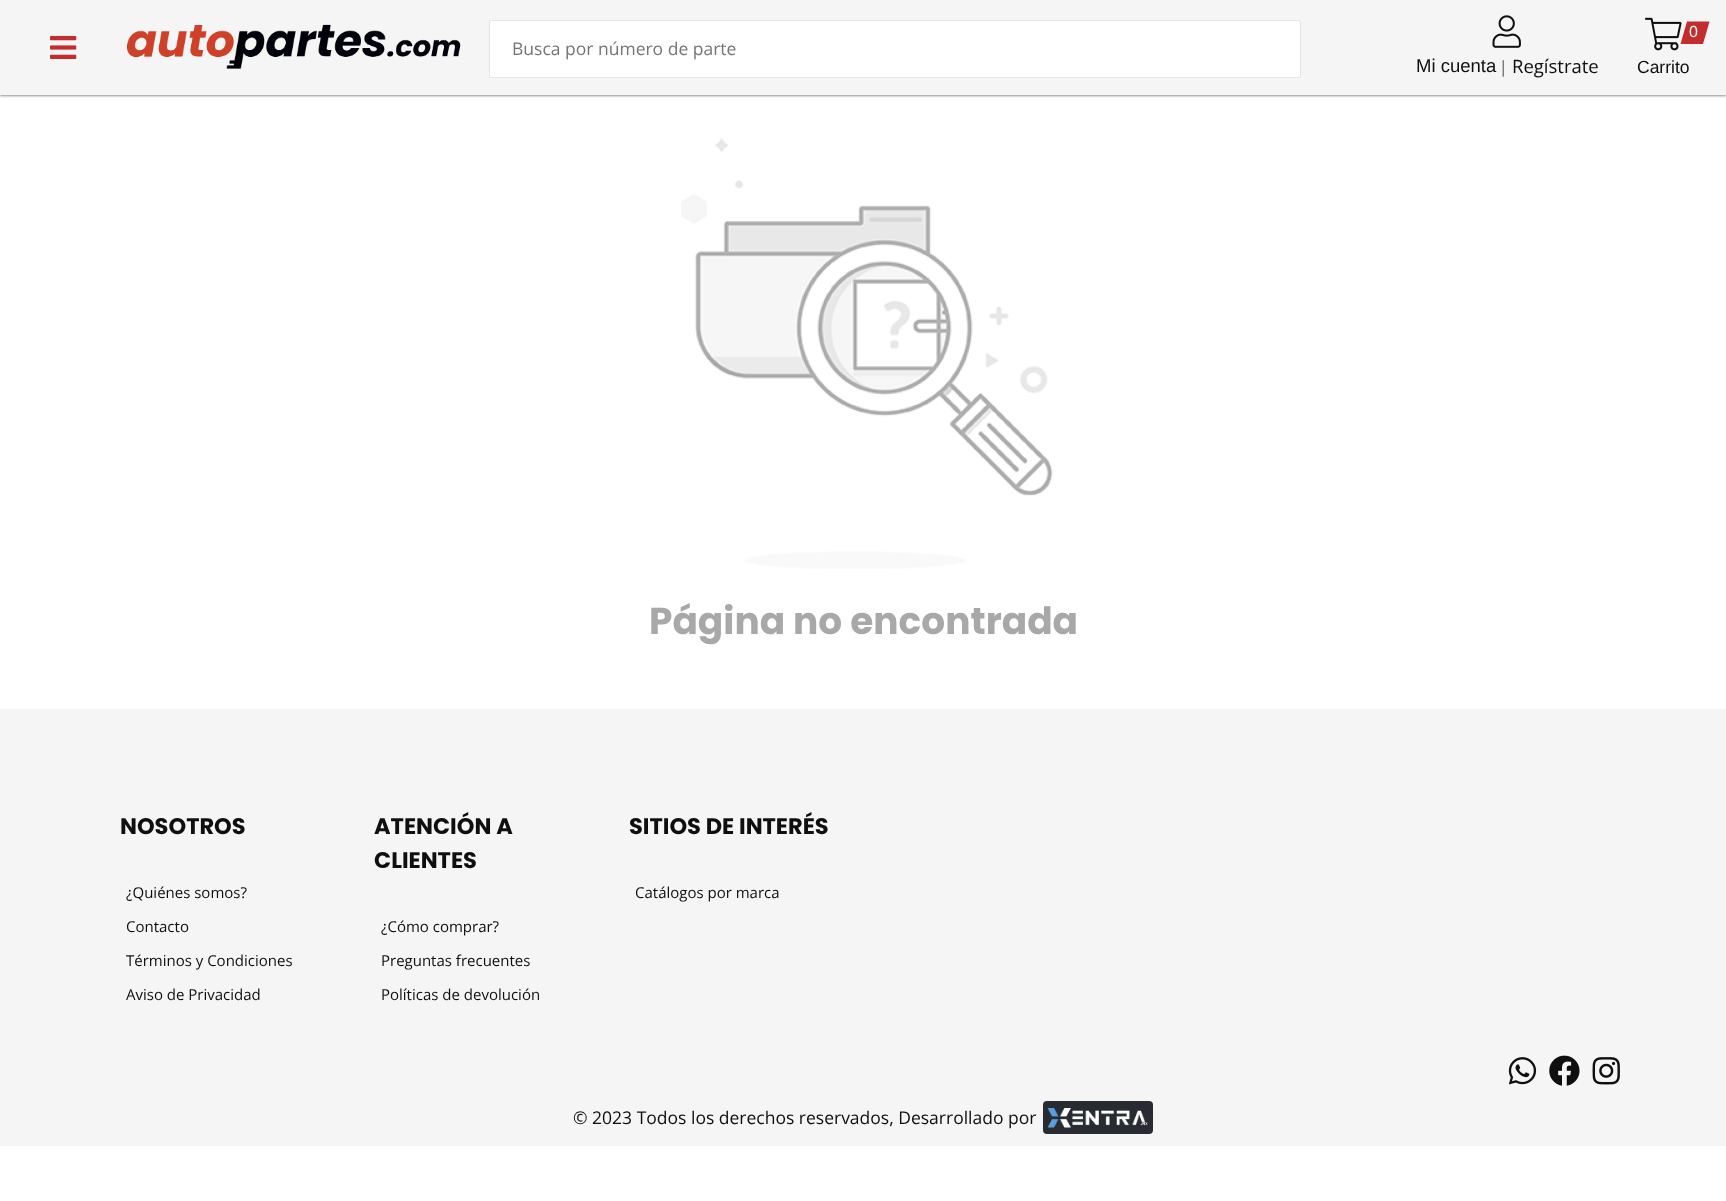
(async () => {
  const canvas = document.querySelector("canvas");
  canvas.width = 1726;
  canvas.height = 1201;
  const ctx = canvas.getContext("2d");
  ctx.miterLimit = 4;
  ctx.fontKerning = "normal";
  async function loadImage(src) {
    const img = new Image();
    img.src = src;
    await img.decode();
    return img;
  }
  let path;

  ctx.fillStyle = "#ffffff";
  ctx.fillRect(0, 0, 1726, 1201);
  ctx.fillStyle = "rgba(0, 0, 0, 0.44)";
  ctx.filter = "blur(1px)";
  ctx.beginPath();
  ctx.rect(0, 1, 1726, 95);
  ctx.fill();
  ctx.filter = "none";
  ctx.fillStyle = "#f5f5f5";
  ctx.fillRect(125, 0, 1601, 95);
  ctx.fillRect(0, 0, 125, 95);
  ctx.drawImage(await loadImage("img/1.png"), 50, 36, 27, 23);
  ctx.drawImage(await loadImage("img/2.png"), 126, 24, 335, 45);
  ctx.fillStyle = "#ffffff";
  ctx.beginPath();
  ctx.roundRect(489.5, 20.5, 811, 57, 1.5);
  ctx.fill();
  ctx.strokeStyle = "#e5e5e5";
  ctx.stroke();
  ctx.drawImage(await loadImage("img/3.png"), 1645, 17, 37, 34);
  ctx.fillStyle = "#c42d2e";
  path = new Path2D("M1687 21.5H1709.5L1703 44H1680.5Z");
  ctx.fill(path);
  ctx.drawImage(await loadImage("img/4.png"), 1492, 15, 29, 33);
  ctx.drawImage(await loadImage("img/5.png"), 681, 138, 372, 431);
  ctx.fillStyle = "#f5f5f5";
  ctx.fillRect(0, 709, 1726, 437);
  ctx.drawImage(await loadImage("img/6.png"), 1508, 1057, 29, 28);
  ctx.drawImage(await loadImage("img/7.png"), 1549, 1055, 31, 31);
  ctx.drawImage(await loadImage("img/8.png"), 1592, 1057, 28, 28);
  ctx.fillStyle = "#282b31";
  ctx.beginPath();
  ctx.roundRect(1043, 1101, 110, 33, 4);
  ctx.fill();
  ctx.drawImage(await loadImage("img/9.png"), 1047, 1108, 101, 20);
  ctx.font = "17.5px Open Sans";
  ctx.fillStyle = "#757575";
  ctx.fillText("Busca por número de parte", 512, 55);
  ctx.font = "16px Liberation Sans";
  ctx.fillStyle = "#ffffff";
  ctx.fillText("0", 1689, 37);
  ctx.font = "17.5px Liberation Sans";
  ctx.fillStyle = "#0f0f0f";
  ctx.fillText("Carrito", 1637, 73);
  ctx.font = "18.5px Liberation Sans";
  ctx.fillText("Mi cuenta", 1416, 72);
  ctx.font = "17.5px Liberation Sans";
  ctx.fillStyle = "#7b7b7b";
  ctx.fillText("|", 1501, 73);
  ctx.font = "18.5px Open Sans";
  ctx.fillStyle = "#0f0f0f";
  ctx.fillText("Regístrate", 1512, 73);
  ctx.font = "bold 37.5px Poppins";
  ctx.fillStyle = "#a8a8a8";
  ctx.fillText("Página no encontrada", 649, 634);
  ctx.font = "bold 22.5px Poppins";
  ctx.fillStyle = "#0f0f0f";
  ctx.fillText("NOSOTROS", 120, 834);
  ctx.font = "15px Open Sans";
  for (const [text, x, y] of [
    ["¿Quiénes somos?", 126, 898],
    ["Contacto", 126, 932],
    ["Términos y Condiciones", 126, 966],
    ["Aviso de Privacidad", 126, 1000],
  ]) {
    ctx.fillText(text, x, y);
  }
  ctx.font = "bold 22.5px Poppins";
  ctx.fillText("ATENCIÓN A", 374, 834);
  ctx.fillText("CLIENTES", 374, 868);
  ctx.font = "15px Open Sans";
  for (const [text, x, y] of [
    ["¿Cómo comprar?", 381, 932],
    ["Preguntas frecuentes", 381, 966],
    ["Políticas de devolución", 381, 1000],
  ]) {
    ctx.fillText(text, x, y);
  }
  ctx.font = "bold 22.5px Poppins";
  ctx.fillText("SITIOS DE INTERÉS", 629, 834);
  ctx.font = "15px Open Sans";
  ctx.fillText("Catálogos por marca", 635, 898);
  ctx.font = "17.5px Open Sans";
  ctx.fillText("© 2023 Todos los derechos reservados, Desarrollado por", 573, 1124);
})();
